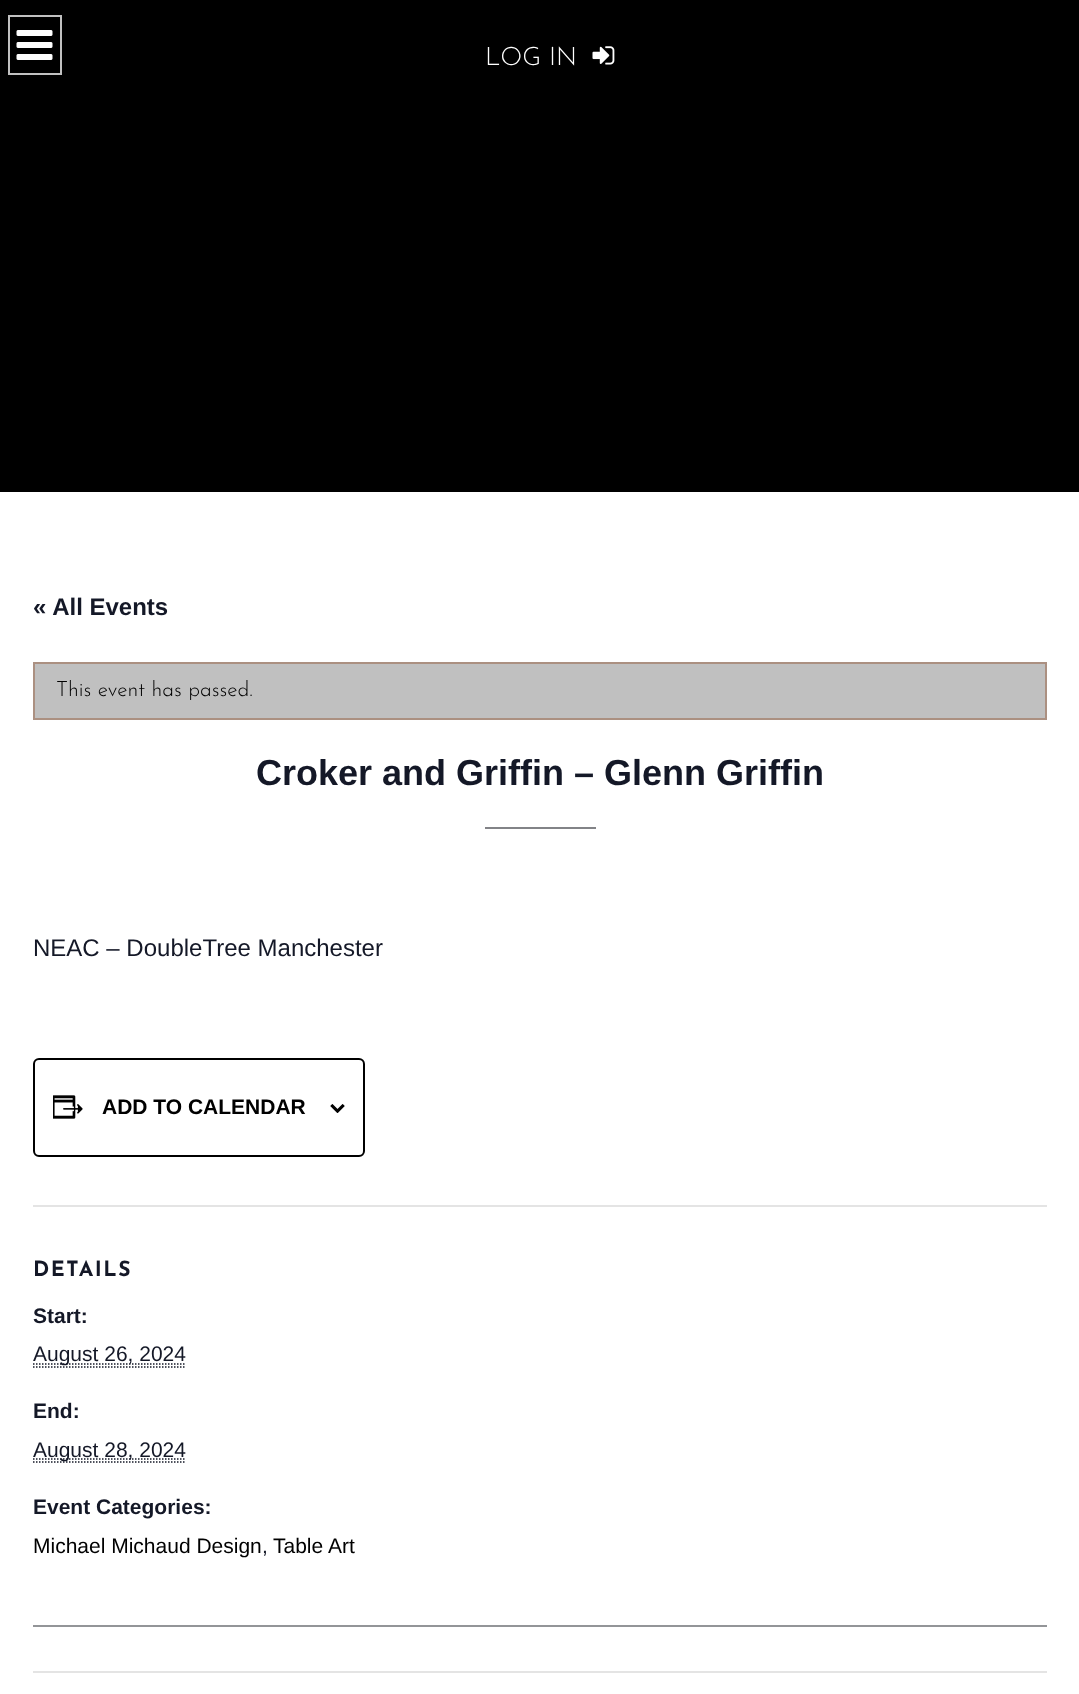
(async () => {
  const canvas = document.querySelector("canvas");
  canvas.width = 1079;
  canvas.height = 1694;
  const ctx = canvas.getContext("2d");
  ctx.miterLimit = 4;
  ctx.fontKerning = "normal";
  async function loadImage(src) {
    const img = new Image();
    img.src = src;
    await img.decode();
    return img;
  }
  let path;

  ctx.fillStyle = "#000000";
  ctx.fillRect(0, 0, 1079, 1694);
  ctx.strokeStyle = "#c0c0c0";
  ctx.lineWidth = 2;
  ctx.strokeRect(9, 16, 52, 58);
  ctx.drawImage(await loadImage("img/1.png"), 16, 30, 37, 30);
  ctx.drawImage(await loadImage("img/2.png"), 592, 46, 23, 19);
  ctx.fillStyle = "#ffffff";
  ctx.fillRect(0, 492, 1079, 1202);
  ctx.fillStyle = "#c0c0c0";
  ctx.beginPath();
  ctx.rect(34, 663, 1012, 56);
  ctx.fill();
  ctx.strokeStyle = "#ab9081";
  ctx.stroke();
  ctx.fillStyle = "#828387";
  ctx.fillRect(485, 827, 111, 2);
  ctx.fillStyle = "#939598";
  ctx.fillRect(33, 1625, 1014, 2);
  ctx.beginPath();
  ctx.roundRect(34, 1059, 330, 97, 5);
  ctx.strokeStyle = "#000000";
  ctx.stroke();
  ctx.drawImage(await loadImage("img/3.png"), 53, 1095, 30, 24);
  ctx.drawImage(await loadImage("img/4.png"), 330, 1104, 15, 9);
  ctx.fillStyle = "#e4e4e4";
  ctx.fillRect(33, 1205, 1014, 2);
  path = new Path2D("M33 1367H186");
  ctx.strokeStyle = "#141827";
  ctx.lineWidth = 1.5;
  ctx.setLineDash([1.5, 1.5]);
  ctx.stroke(path);
  path = new Path2D("M33 1364H186");
  ctx.stroke(path);
  path = new Path2D("M33 1462H186");
  ctx.stroke(path);
  path = new Path2D("M33 1459H186");
  ctx.stroke(path);
  ctx.fillRect(33, 1671, 1014, 2);
  ctx.font = "300 25.5px Josefin Sans";
  ctx.fillStyle = "#ffffff";
  ctx.fillText("LOG IN", 485, 65);
  ctx.font = "bold 24px Liberation Sans";
  ctx.fillStyle = "#141827";
  ctx.fillText("« All Events", 33, 615);
  ctx.font = "300 21px Josefin Sans";
  ctx.fillStyle = "#000000";
  ctx.fillText("This event has passed.", 56, 696);
  ctx.font = "bold 36px Liberation Sans";
  ctx.fillStyle = "#141827";
  ctx.fillText("Croker and Griffin – Glenn Griffin", 256, 785);
  ctx.font = "24px Liberation Sans";
  ctx.fillText("NEAC – DoubleTree Manchester", 33, 956);
  ctx.font = "bold 21px Liberation Sans";
  ctx.fillStyle = "#000000";
  ctx.fillText("ADD TO CALENDAR", 102, 1114);
  ctx.letterSpacing = "1.5px";
  ctx.font = "bold 21px Josefin Sans";
  ctx.fillStyle = "#141827";
  ctx.fillText("DETAILS", 33, 1276);
  ctx.letterSpacing = "0px";
  ctx.font = "bold 21px Liberation Sans";
  ctx.fillText("Start:", 33, 1323);
  ctx.font = "21px Liberation Sans";
  ctx.fillText("August 26, 2024", 33, 1361);
  ctx.font = "bold 21px Liberation Sans";
  ctx.fillText("End:", 33, 1418);
  ctx.font = "21px Liberation Sans";
  ctx.fillText("August 28, 2024", 33, 1457);
  ctx.font = "bold 21px Liberation Sans";
  ctx.fillText("Event Categories:", 33, 1514);
  ctx.font = "21px Liberation Sans";
  ctx.fillStyle = "#000000";
  ctx.fillText("Michael Michaud Design", 33, 1553);
  ctx.fillStyle = "#141827";
  ctx.fillText(",", 262, 1553);
  ctx.fillStyle = "#000000";
  ctx.fillText("Table Art", 273, 1553);
})();
